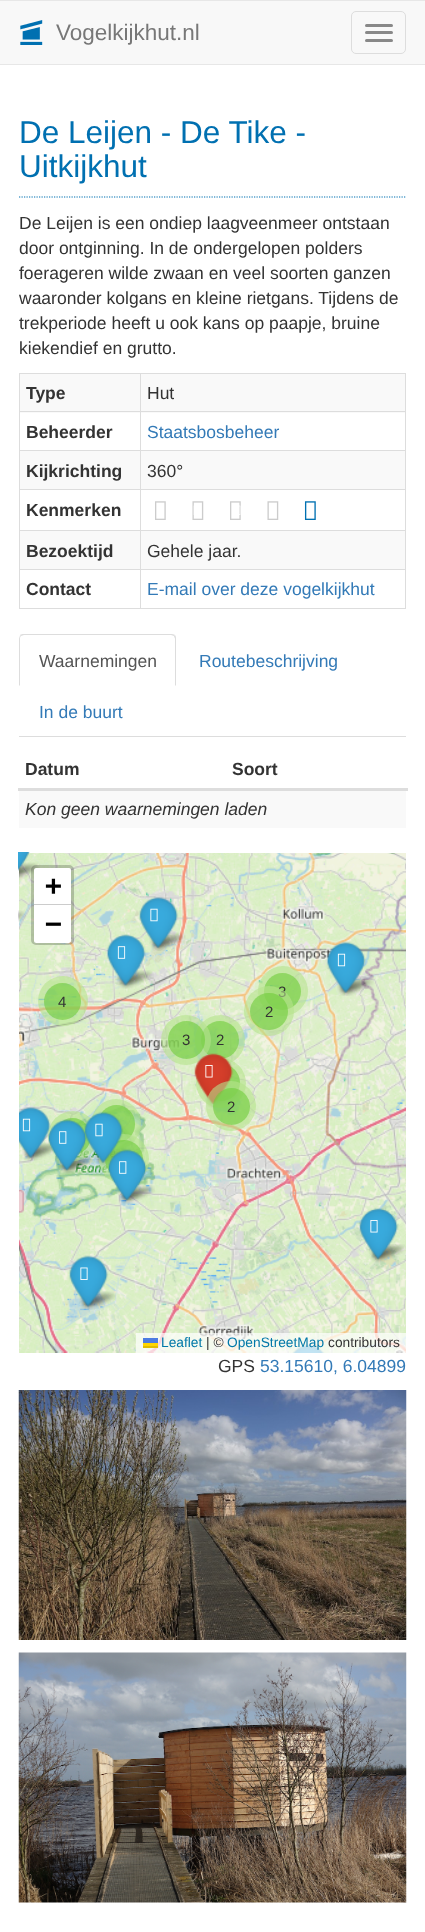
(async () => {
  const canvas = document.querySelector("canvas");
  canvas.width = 425;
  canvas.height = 1932;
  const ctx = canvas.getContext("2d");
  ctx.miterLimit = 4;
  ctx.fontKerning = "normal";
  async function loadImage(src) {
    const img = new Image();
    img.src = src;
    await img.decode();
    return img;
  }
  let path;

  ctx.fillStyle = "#ffffff";
  ctx.fillRect(0, 0, 425, 1932);
  for (const [x, y, w, h, color] of [
    [0, 1, 425, 63, "#f8f8f8"],
    [0, 0, 425, 1, "#e7e7e7"],
    [0, 64, 425, 1, "#e7e7e7"],
  ]) {
    ctx.fillStyle = color;
    ctx.fillRect(x, y, w, h);
  }
  ctx.drawImage(await loadImage("img/1.png"), 20, 20, 23, 25);
  ctx.beginPath();
  ctx.roundRect(351.5, 11.5, 54, 42, 4.5);
  ctx.strokeStyle = "#dddddd";
  ctx.stroke();
  ctx.fillStyle = "#888888";
  ctx.beginPath();
  ctx.roundRect(365, 24, 28, 3, 1.5);
  ctx.fill();
  ctx.beginPath();
  ctx.roundRect(365, 31, 28, 3, 1.5);
  ctx.fill();
  ctx.beginPath();
  ctx.roundRect(365, 39, 28, 3, 1.5);
  ctx.fill();
  path = new Path2D("M19 197H406");
  ctx.strokeStyle = "#0070b1";
  ctx.lineWidth = 1.2;
  ctx.setLineDash([1.25, 1.25]);
  ctx.stroke(path);
  for (const [x, y, w, h, color] of [
    [19, 373, 387, 1, "#dddddd"],
    [405, 373, 1, 236, "#dddddd"],
    [19, 608, 387, 1, "#dddddd"],
    [19, 373, 1, 236, "#dddddd"],
    [20, 374, 385, 39, "#f9f9f9"],
    [140, 411, 266, 1, "#dddddd"],
    [140, 450, 266, 1, "#dddddd"],
    [20, 451, 385, 38, "#f9f9f9"],
    [140, 489, 266, 1, "#dddddd"],
    [140, 530, 266, 1, "#dddddd"],
    [20, 531, 385, 38, "#f9f9f9"],
    [140, 569, 266, 1, "#dddddd"],
    [140, 569, 1, 40, "#dddddd"],
    [19, 569, 122, 1, "#dddddd"],
    [140, 530, 1, 40, "#dddddd"],
    [19, 530, 122, 1, "#dddddd"],
    [140, 489, 1, 42, "#dddddd"],
    [19, 489, 122, 1, "#dddddd"],
    [140, 450, 1, 40, "#dddddd"],
    [19, 450, 122, 1, "#dddddd"],
    [140, 411, 1, 40, "#dddddd"],
    [19, 411, 122, 1, "#dddddd"],
    [140, 373, 1, 40, "#dddddd"],
  ]) {
    ctx.fillStyle = color;
    ctx.fillRect(x, y, w, h);
  }
  ctx.drawImage(await loadImage("img/2.png"), 155, 501, 11, 19);
  ctx.drawImage(await loadImage("img/3.png"), 192, 501, 12, 19);
  ctx.drawImage(await loadImage("img/4.png"), 193, 505, 1, 10);
  ctx.drawImage(await loadImage("img/2.png"), 230, 501, 11, 19);
  ctx.drawImage(await loadImage("img/5.png"), 239, 505, 2, 10);
  ctx.drawImage(await loadImage("img/3.png"), 267, 501, 12, 19);
  ctx.drawImage(await loadImage("img/6.png"), 304, 501, 12, 19);
  ctx.fillRect(19, 736, 387, 1);
  path = new Path2D("M24 634C22 634 21 634 20 635L21 636C22 636 23 635 24 635H171C172 635 173 636 174 636L175 635C174 634 172 634 171 634Z");
  ctx.fill(path);
  path = new Path2D("M176 686V639C176 638 176 636 175 635L174 636C174 637 175 638 175 639V685Z");
  ctx.fill(path);
  path = new Path2D("M20 635C20 636 19 638 19 639V686L20 685V639C20 638 20 637 21 636Z");
  ctx.fill(path);
  ctx.fillRect(18, 788, 390, 3);
  ctx.fillStyle = "#f9f9f9";
  ctx.fillRect(19, 791, 387, 37);
  ctx.drawImage(await loadImage("img/7.png"), 19, 853, 127, 303);
  ctx.drawImage(await loadImage("img/11.png"), 19, 862, 21, 18);
  ctx.beginPath();
  ctx.roundRect(32.5, 866.5, 40, 77, 3.5);
  ctx.strokeStyle = "rgba(0, 0, 0, 0.2)";
  ctx.lineWidth = 3;
  ctx.setLineDash([]);
  ctx.stroke();
  ctx.fillStyle = "#ffffff";
  ctx.beginPath();
  ctx.roundRect(34, 868, 37, 37, [2.5, 2.5, 0, 0]);
  ctx.fill();
  ctx.fillStyle = "#cccccc";
  ctx.fillRect(34, 904, 37, 1);
  ctx.fillStyle = "#ffffff";
  ctx.beginPath();
  ctx.roundRect(34, 905, 37, 38, [0, 0, 2.5, 2.5]);
  ctx.fill();
  ctx.drawImage(await loadImage("img/9.png"), 19, 1156, 127, 197);
  ctx.drawImage(await loadImage("img/10.png"), 146, 1156, 260, 197);
  ctx.drawImage(await loadImage("img/41.png"), 292, 1344, 33, 9);
  for (const [x, y, w, h, color] of [
    [136, 1333, 270, 20, "rgba(255, 255, 255, 0.7)"],
    [143, 1338, 15, 5, "#4c7be1"],
    [143, 1343, 15, 3, "#ffd500"],
    [143, 1346, 15, 2, "#e0bc00"],
  ]) {
    ctx.fillStyle = color;
    ctx.fillRect(x, y, w, h);
  }
  ctx.drawImage(await loadImage("img/8.png"), 146, 853, 260, 303);
  ctx.drawImage(await loadImage("img/12.png"), 18, 910, 8, 12);
  ctx.drawImage(await loadImage("img/13.png"), 149, 932, 37, 19);
  ctx.drawImage(await loadImage("img/14.png"), 117, 970, 37, 19);
  ctx.drawImage(await loadImage("img/15.png"), 337, 977, 37, 19);
  ctx.drawImage(await loadImage("img/16.png"), 204, 1089, 37, 19);
  ctx.drawImage(await loadImage("img/17.png"), 22, 1142, 33, 19);
  ctx.drawImage(await loadImage("img/18.png"), 58, 1155, 37, 19);
  ctx.drawImage(await loadImage("img/19.png"), 94, 1147, 37, 19);
  ctx.drawImage(await loadImage("img/20.png"), 118, 1185, 37, 19);
  ctx.drawImage(await loadImage("img/21.png"), 369, 1244, 37, 19);
  ctx.drawImage(await loadImage("img/22.png"), 79, 1291, 37, 19);
  ctx.drawImage(await loadImage("img/23.png"), 18, 852, 12, 19);
  ctx.drawImage(await loadImage("img/24.png"), 139, 896, 40, 52);
  ctx.drawImage(await loadImage("img/25.png"), 150, 908, 8, 14);
  ctx.drawImage(await loadImage("img/26.png"), 106, 934, 40, 52);
  ctx.drawImage(await loadImage("img/27.png"), 117, 946, 9, 13);
  ctx.fillStyle = "rgba(181, 226, 140, 0.6)";
  ctx.beginPath();
  ctx.arc(283, 991, 25, 0, Math.PI * 2);
  ctx.fill();
  ctx.fillStyle = "rgba(110, 204, 57, 0.6)";
  ctx.beginPath();
  ctx.arc(282.5, 991.5, 18.5, 0, Math.PI * 2);
  ctx.fill();
  ctx.drawImage(await loadImage("img/28.png"), 326, 941, 40, 52);
  ctx.drawImage(await loadImage("img/29.png"), 337, 953, 9, 14);
  ctx.fillStyle = "rgba(181, 226, 140, 0.6)";
  ctx.beginPath();
  ctx.arc(63, 1001, 25, 0, Math.PI * 2);
  ctx.fill();
  ctx.fillStyle = "rgba(110, 204, 57, 0.6)";
  ctx.beginPath();
  ctx.arc(62.5, 1001.5, 18.5, 0, Math.PI * 2);
  ctx.fill();
  ctx.fillStyle = "rgba(181, 226, 140, 0.6)";
  ctx.beginPath();
  ctx.arc(116, 1124, 25, 0, Math.PI * 2);
  ctx.fill();
  ctx.beginPath();
  ctx.arc(73, 1136, 25, 0, Math.PI * 2);
  ctx.fill();
  ctx.drawImage(await loadImage("img/32.png"), 19, 1106, 32, 52);
  ctx.drawImage(await loadImage("img/29.png"), 22, 1118, 9, 14);
  ctx.fillStyle = "rgba(110, 204, 57, 0.6)";
  ctx.beginPath();
  ctx.arc(72.5, 1136.5, 18.5, 0, Math.PI * 2);
  ctx.fill();
  ctx.beginPath();
  ctx.roundRect(98, 1105, 37, 38, 18.5);
  ctx.fill();
  ctx.fillStyle = "rgba(181, 226, 140, 0.6)";
  ctx.beginPath();
  ctx.arc(124, 1159, 25, 0, Math.PI * 2);
  ctx.fill();
  ctx.fillStyle = "rgba(110, 204, 57, 0.6)";
  ctx.beginPath();
  ctx.arc(124, 1159, 19, 0, Math.PI * 2);
  ctx.fill();
  ctx.drawImage(await loadImage("img/35.png"), 84, 1111, 39, 52);
  ctx.drawImage(await loadImage("img/33.png"), 48, 1119, 39, 52);
  ctx.drawImage(await loadImage("img/34.png"), 59, 1131, 8, 13);
  ctx.drawImage(await loadImage("img/25.png"), 95, 1123, 8, 14);
  ctx.drawImage(await loadImage("img/36.png"), 108, 1149, 39, 52);
  ctx.drawImage(await loadImage("img/34.png"), 119, 1161, 8, 13);
  ctx.drawImage(await loadImage("img/37.png"), 359, 1208, 40, 51);
  ctx.drawImage(await loadImage("img/38.png"), 370, 1220, 8, 13);
  ctx.drawImage(await loadImage("img/39.png"), 69, 1255, 40, 52);
  ctx.drawImage(await loadImage("img/40.png"), 80, 1267, 8, 13);
  ctx.drawImage(await loadImage("img/42.png"), 18, 1390, 389, 250);
  ctx.drawImage(await loadImage("img/43.png"), 18, 1652, 389, 251);
  ctx.font = "22.5px Liberation Sans";
  ctx.fillStyle = "#777777";
  ctx.fillText("Vogelkijkhut.nl", 56, 40);
  ctx.font = "31.5px Liberation Sans";
  ctx.fillStyle = "#0070b1";
  ctx.fillText("De Leijen - De Tike -", 19, 143);
  ctx.fillText("Uitkijkhut", 19, 177);
  ctx.font = "17.5px Liberation Sans";
  ctx.fillStyle = "#333333";
  for (const [text, x, y] of [
    ["De Leijen is een ondiep laagveenmeer ontstaan", 19, 229],
    ["door ontginning. In de ondergelopen polders", 19, 254],
    ["foerageren wilde zwaan en veel soorten ganzen", 19, 279],
    ["waaronder kolgans en kleine rietgans. Tijdens de", 19, 304],
    ["trekperiode heeft u ook kans op paapje, bruine", 19, 329],
    ["kiekendief en grutto.", 19, 354],
  ]) {
    ctx.fillText(text, x, y);
  }
  ctx.font = "bold 17.5px Liberation Sans";
  ctx.fillText("Type", 26, 399);
  ctx.font = "17.5px Liberation Sans";
  ctx.fillText("Hut", 147, 399);
  ctx.font = "bold 17.5px Liberation Sans";
  ctx.fillText("Beheerder", 26, 438);
  ctx.font = "17.5px Liberation Sans";
  ctx.fillStyle = "#337ab7";
  ctx.fillText("Staatsbosbeheer", 147, 438);
  ctx.font = "bold 17.5px Liberation Sans";
  ctx.fillStyle = "#333333";
  ctx.fillText("Kijkrichting", 26, 477);
  ctx.font = "17.5px Liberation Sans";
  ctx.fillText("360°", 147, 477);
  ctx.font = "bold 17.5px Liberation Sans";
  ctx.fillText("Kenmerken", 26, 516);
  ctx.fillText("Bezoektijd", 26, 557);
  ctx.font = "17.5px Liberation Sans";
  ctx.fillText("Gehele jaar.", 147, 557);
  ctx.font = "bold 17.5px Liberation Sans";
  ctx.fillText("Contact", 26, 595);
  ctx.font = "17.5px Liberation Sans";
  ctx.fillStyle = "#337ab7";
  ctx.fillText("E-mail over deze vogelkijkhut", 147, 595);
  ctx.fillStyle = "#555555";
  ctx.fillText("Waarnemingen", 39, 667);
  ctx.fillStyle = "#337ab7";
  ctx.fillText("Routebeschrijving", 199, 667);
  ctx.fillText("In de buurt", 39, 718);
  ctx.font = "bold 17.5px Liberation Sans";
  ctx.fillStyle = "#333333";
  ctx.fillText("Datum", 25, 775);
  ctx.fillText("Soort", 232, 775);
  ctx.font = "italic 17.5px Liberation Sans";
  ctx.fillText("Kon geen waarnemingen laden", 25, 815);
  ctx.font = "bold 28px DejaVu Sans Mono";
  ctx.fillStyle = "#000000";
  ctx.fillText("+", 45, 895);
  ctx.fillText("−", 45, 933);
  ctx.font = "13.75px Liberation Sans";
  ctx.fillStyle = "#0078a8";
  ctx.fillText("Leaflet", 161, 1347);
  ctx.fillStyle = "#333333";
  ctx.fillText("| ©", 206, 1347);
  ctx.fillStyle = "#0078a8";
  ctx.fillText("OpenStreetMap", 227, 1347);
  ctx.fillStyle = "#333333";
  ctx.fillText("contributors", 328, 1347);
  ctx.font = "15px Liberation Sans";
  ctx.fillText("3", 278, 997);
  ctx.fillText("4", 58, 1007);
  ctx.fillStyle = "rgba(181, 226, 140, 0.6)";
  ctx.beginPath();
  ctx.arc(269, 1011, 25, 0, Math.PI * 2);
  ctx.fill();
  ctx.fillStyle = "rgba(110, 204, 57, 0.6)";
  ctx.beginPath();
  ctx.roundRect(250, 993, 38, 37, 18.5);
  ctx.fill();
  ctx.fillStyle = "#333333";
  ctx.fillText("2", 265, 1017);
  ctx.fillStyle = "rgba(181, 226, 140, 0.6)";
  ctx.beginPath();
  ctx.arc(220, 1040, 25, 0, Math.PI * 2);
  ctx.fill();
  ctx.fillStyle = "rgba(110, 204, 57, 0.6)";
  ctx.beginPath();
  ctx.arc(220, 1040, 19, 0, Math.PI * 2);
  ctx.fill();
  ctx.fillStyle = "rgba(181, 226, 140, 0.6)";
  ctx.beginPath();
  ctx.arc(186, 1040, 25, 0, Math.PI * 2);
  ctx.fill();
  ctx.fillStyle = "rgba(110, 204, 57, 0.6)";
  ctx.beginPath();
  ctx.roundRect(168, 1021, 37, 38, 18.5);
  ctx.fill();
  ctx.fillStyle = "#333333";
  ctx.fillText("3", 182, 1045);
  ctx.fillText("2", 216, 1045);
  ctx.fillStyle = "rgba(181, 226, 140, 0.6)";
  ctx.beginPath();
  ctx.arc(221, 1083, 25, 0, Math.PI * 2);
  ctx.fill();
  ctx.fillStyle = "rgba(110, 204, 57, 0.6)";
  ctx.beginPath();
  ctx.arc(221.5, 1082.5, 18.5, 0, Math.PI * 2);
  ctx.fill();
  ctx.drawImage(await loadImage("img/30.png"), 194, 1053, 40, 51);
  ctx.drawImage(await loadImage("img/31.png"), 205, 1065, 8, 13);
  ctx.fillStyle = "rgba(181, 226, 140, 0.6)";
  ctx.beginPath();
  ctx.arc(231, 1106, 25, 0, Math.PI * 2);
  ctx.fill();
  ctx.fillStyle = "rgba(110, 204, 57, 0.6)";
  ctx.beginPath();
  ctx.arc(231.5, 1106.5, 18.5, 0, Math.PI * 2);
  ctx.fill();
  ctx.fillStyle = "#333333";
  ctx.fillText("2", 227, 1112);
  ctx.font = "17.5px Liberation Sans";
  ctx.fillText("GPS", 218, 1372);
  ctx.fillStyle = "#337ab7";
  ctx.fillText("53.15610, 6.04899", 260, 1372);
})();
